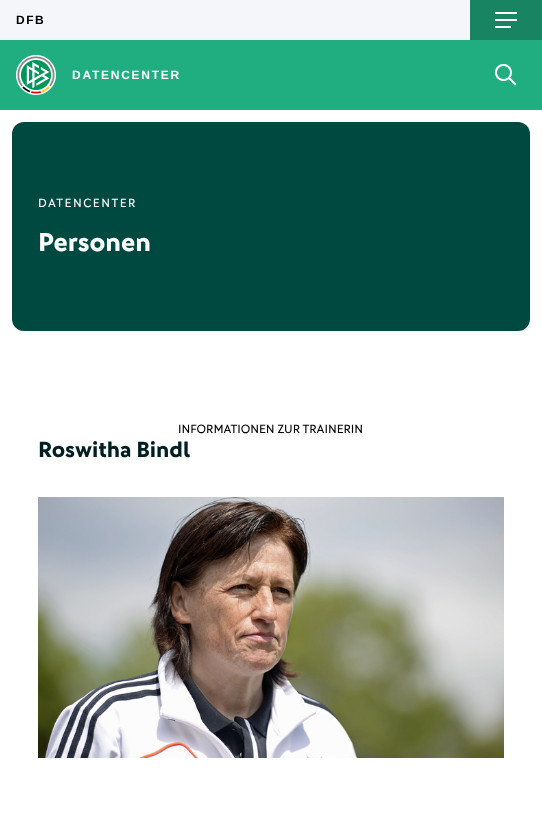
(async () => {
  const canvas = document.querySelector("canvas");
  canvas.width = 542;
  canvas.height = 821;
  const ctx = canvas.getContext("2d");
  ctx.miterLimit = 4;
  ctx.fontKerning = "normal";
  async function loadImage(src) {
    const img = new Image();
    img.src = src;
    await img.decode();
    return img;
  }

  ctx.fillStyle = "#ffffff";
  ctx.fillRect(0, 0, 542, 821);
  ctx.fillStyle = "#f5f6fa";
  ctx.fillRect(0, 0, 470, 40);
  ctx.fillStyle = "#188461";
  ctx.fillRect(470, 0, 72, 40);
  ctx.drawImage(await loadImage("img/1.png"), 495, 12, 22, 16);
  ctx.fillStyle = "#20ae80";
  ctx.fillRect(0, 40, 542, 70);
  ctx.drawImage(await loadImage("img/2.png"), 16, 55, 40, 40);
  ctx.drawImage(await loadImage("img/3.png"), 494, 63, 23, 23);
  ctx.fillStyle = "#004941";
  ctx.beginPath();
  ctx.roundRect(12, 122, 518, 209, 12);
  ctx.fill();
  ctx.drawImage(await loadImage("img/4.png"), 38, 497, 466, 261);
  ctx.letterSpacing = "1.5px";
  ctx.font = "bold 12px Liberation Sans";
  ctx.fillStyle = "#000000";
  ctx.fillText("DFB", 16, 24);
  ctx.letterSpacing = "1.75px";
  ctx.fillStyle = "#ffffff";
  ctx.fillText("DATENCENTER", 72, 79);
  ctx.letterSpacing = "1.5px";
  ctx.font = "12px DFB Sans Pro";
  ctx.fillText("DATENCENTER", 38, 207);
  ctx.letterSpacing = "0px";
  ctx.font = "600 26px DFB Sans Pro";
  ctx.fillText("Personen", 38, 251);
  ctx.font = "12px DFB Sans Pro";
  ctx.fillStyle = "#000000";
  ctx.fillText("INFORMATIONEN ZUR TRAINERIN", 178, 433);
  ctx.font = "600 22px DFB Sans Pro";
  ctx.fillStyle = "#001f23";
  ctx.fillText("Roswitha Bindl", 38, 457);
})();
